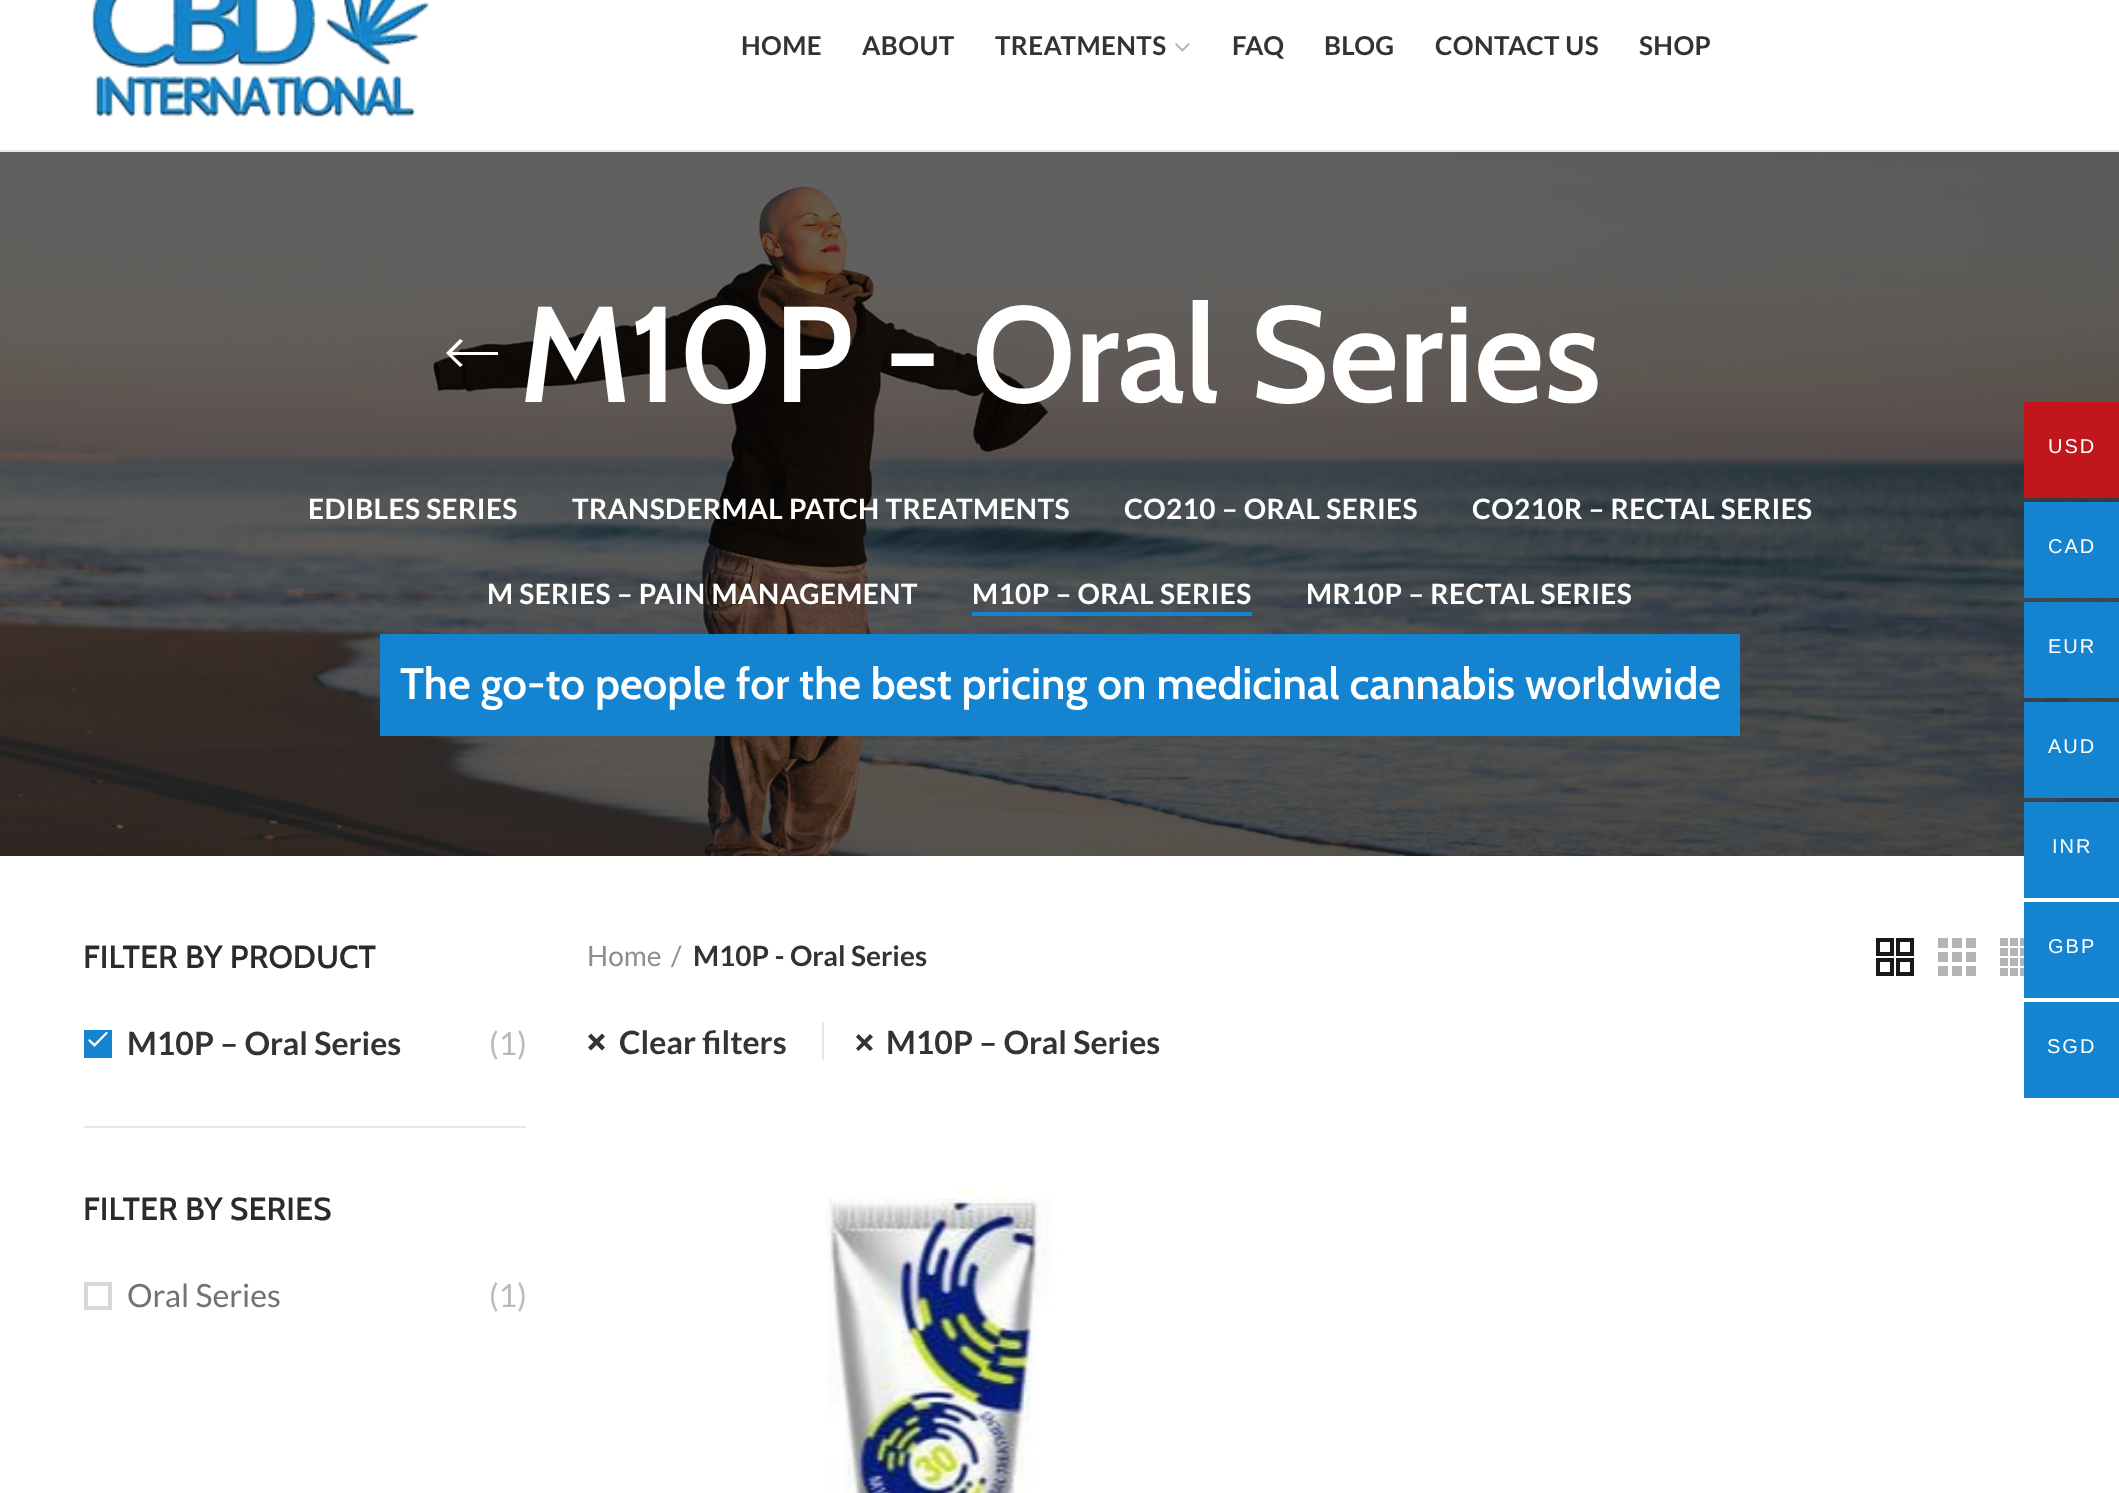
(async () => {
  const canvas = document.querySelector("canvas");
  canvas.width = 2119;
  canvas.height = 1493;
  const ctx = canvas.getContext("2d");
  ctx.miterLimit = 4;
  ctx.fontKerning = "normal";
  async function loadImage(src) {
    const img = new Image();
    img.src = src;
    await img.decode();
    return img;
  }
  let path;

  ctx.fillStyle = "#ffffff";
  ctx.fillRect(0, 0, 2119, 1493);
  ctx.fillStyle = "#e6e6e6";
  ctx.fillRect(0, 150, 2119, 2);
  ctx.drawImage(await loadImage("img/1.png"), 91, 0, 338, 118);
  ctx.drawImage(await loadImage("img/2.png"), 1175, 43, 15, 9);
  ctx.drawImage(await loadImage("img/3.png"), 0, 152, 2119, 704);
  ctx.fillStyle = "#ffffff";
  path = new Path2D("M498 352V355H452L463 365L460 367L446 353L460 339L463 341L452 352Z");
  ctx.fill(path);
  for (const [x, y, w, h, color] of [
    [972, 612, 280, 4, "#1484d0"],
    [380, 634, 1360, 102, "#1484d0"],
    [84, 1126, 442, 2, "#e6e6e6"],
    [84, 1030, 28, 28, "#1484d0"],
  ]) {
    ctx.fillStyle = color;
    ctx.fillRect(x, y, w, h);
  }
  ctx.fillStyle = "#ffffff";
  path = new Path2D("M94.5 1043.5L106.5 1031.5L108 1033L94.5 1047L88 1040.5L89.5 1039Z");
  ctx.fill(path);
  ctx.strokeStyle = "#d8d8d8";
  ctx.lineWidth = 4;
  ctx.strokeRect(86, 1284, 24, 24);
  ctx.drawImage(await loadImage("img/4.png"), 1876, 938, 38, 38);
  ctx.drawImage(await loadImage("img/5.png"), 1938, 938, 38, 38);
  ctx.drawImage(await loadImage("img/6.png"), 2000, 938, 24, 38);
  ctx.fillStyle = "#e6e6e6";
  ctx.fillRect(822, 1022, 2, 38);
  ctx.fillStyle = "#333333";
  path = new Path2D("M591 1033.5L605 1047.5L602 1050.5L588 1036.5Z");
  ctx.fill(path);
  path = new Path2D("M588 1047.5L602 1033.5L605 1036.5L591 1050.5Z");
  ctx.fill(path);
  path = new Path2D("M858.5 1034L873 1048.5L870 1051L856 1037Z");
  ctx.fill(path);
  path = new Path2D("M856 1048.5L870 1034L873 1037L858.5 1051Z");
  ctx.fill(path);
  ctx.drawImage(await loadImage("img/7.png"), 826, 1186, 233, 307);
  for (const [x, y, w, h, color] of [
    [2024, 402, 95, 96, "#c1161c"],
    [2024, 502, 95, 96, "#1484d0"],
    [2024, 602, 95, 96, "#1484d0"],
    [2024, 702, 95, 96, "#1484d0"],
    [2024, 802, 95, 96, "#1484d0"],
    [2024, 902, 95, 96, "#1484d0"],
    [2024, 1002, 95, 96, "#1484d0"],
  ]) {
    ctx.fillStyle = color;
    ctx.fillRect(x, y, w, h);
  }
  ctx.letterSpacing = "0.4px";
  ctx.font = "bold 26px Lato";
  ctx.fillStyle = "#333333";
  for (const [text, x, y] of [
    ["HOME", 741, 55],
    ["ABOUT", 862, 55],
    ["TREATMENTS", 995, 55],
    ["FAQ", 1232, 55],
    ["BLOG", 1324, 55],
    ["CONTACT US", 1435, 55],
    ["SHOP", 1639, 55],
  ]) {
    ctx.fillText(text, x, y);
  }
  ctx.letterSpacing = "0px";
  ctx.font = "600 136px Cabin";
  ctx.fillStyle = "#ffffff";
  ctx.fillText("M10P - Oral Series", 519, 402);
  ctx.letterSpacing = "0.4px";
  ctx.font = "bold 28px Lato";
  for (const [text, x, y] of [
    ["EDIBLES SERIES", 308, 519],
    ["TRANSDERMAL PATCH TREATMENTS", 572, 519],
    ["CO210 – ORAL SERIES", 1124, 519],
    ["CO210R – RECTAL SERIES", 1472, 519],
    ["M SERIES – PAIN MANAGEMENT", 487, 604],
    ["M10P – ORAL SERIES", 972, 604],
    ["MR10P – RECTAL SERIES", 1306, 604],
  ]) {
    ctx.fillText(text, x, y);
  }
  ctx.letterSpacing = "0px";
  ctx.font = "600 44px Cabin";
  ctx.fillText("The go-to people for the best pricing on medicinal cannabis worldwide", 400, 699);
  ctx.font = "600 32px Cabin";
  ctx.fillStyle = "#2d2a2a";
  ctx.fillText("FILTER BY PRODUCT", 83, 968);
  ctx.font = "bold 32px Lato";
  ctx.fillStyle = "#333333";
  ctx.fillText("M10P – Oral Series", 127, 1055);
  ctx.font = "32px Lato";
  ctx.fillStyle = "#bbbbbb";
  ctx.fillText("(1)", 489, 1055);
  ctx.font = "600 32px Cabin";
  ctx.fillStyle = "#2d2a2a";
  ctx.fillText("FILTER BY SERIES", 83, 1220);
  ctx.font = "32px Lato";
  ctx.fillStyle = "#727272";
  ctx.fillText("Oral Series", 127, 1307);
  ctx.fillStyle = "#bbbbbb";
  ctx.fillText("(1)", 489, 1307);
  ctx.font = "28px Lato";
  ctx.fillStyle = "#8e8e8e";
  ctx.fillText("Home", 587, 966);
  ctx.fillText("/", 671, 966);
  ctx.font = "bold 28px Lato";
  ctx.fillStyle = "#333333";
  ctx.fillText("M10P - Oral Series", 693, 966);
  ctx.font = "bold 32px Lato";
  ctx.fillText("Clear filters", 619, 1054);
  ctx.fillText("M10P – Oral Series", 886, 1054);
  ctx.letterSpacing = "2px";
  ctx.font = "20px Liberation Sans";
  ctx.fillStyle = "#ffffff";
  for (const [text, x, y] of [
    ["USD", 2048, 453],
    ["CAD", 2048, 553],
    ["EUR", 2048, 653],
    ["AUD", 2048, 753],
    ["INR", 2052, 853],
    ["GBP", 2048, 953],
    ["SGD", 2047, 1053],
  ]) {
    ctx.fillText(text, x, y);
  }
})();
